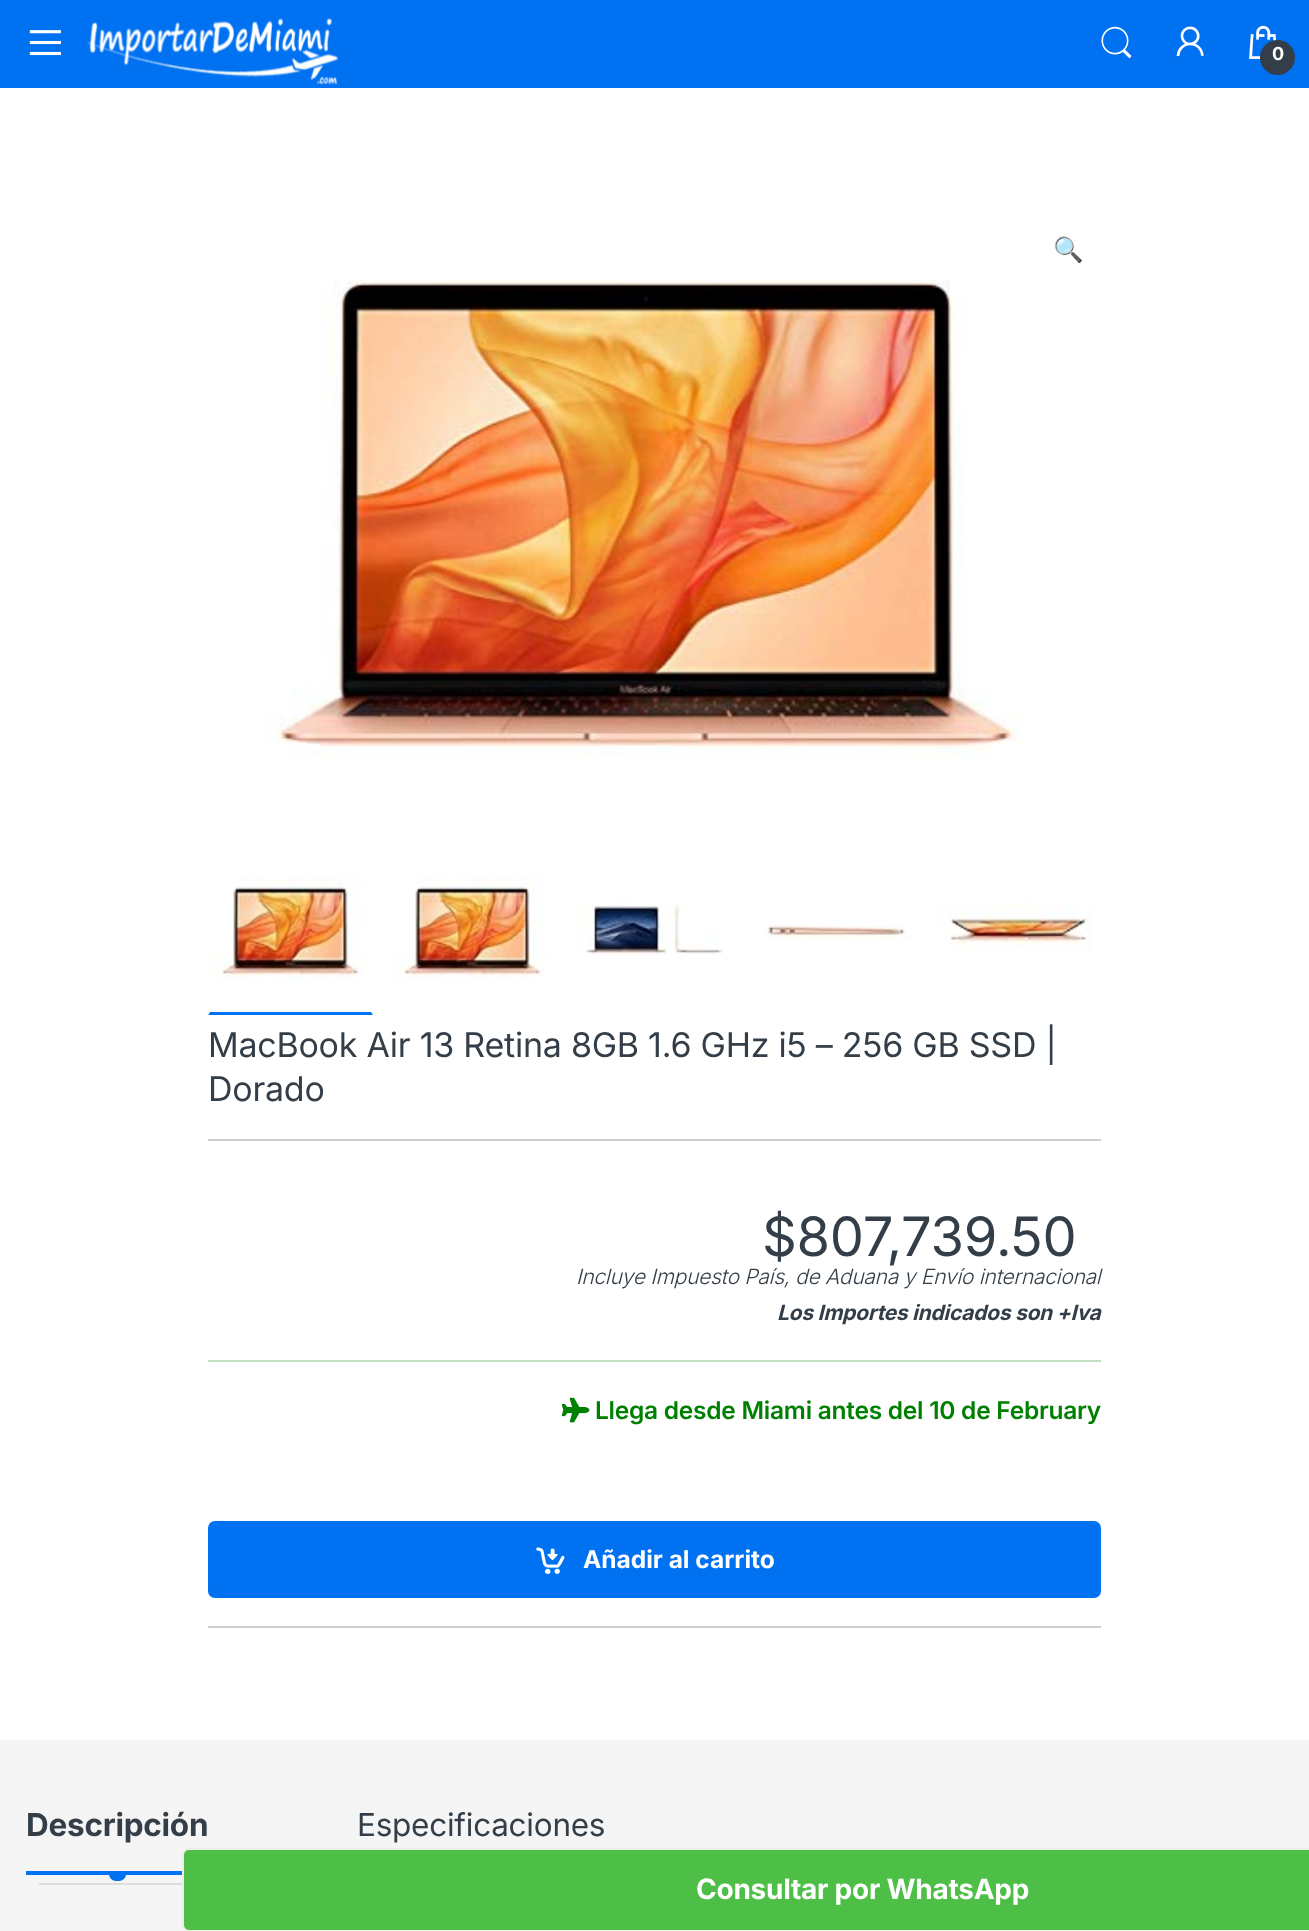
(async () => {
  const canvas = document.querySelector("canvas");
  canvas.width = 1309;
  canvas.height = 1931;
  const ctx = canvas.getContext("2d");
  ctx.miterLimit = 4;
  ctx.fontKerning = "normal";
  async function loadImage(src) {
    const img = new Image();
    img.src = src;
    await img.decode();
    return img;
  }
  let path;

  ctx.fillStyle = "#ffffff";
  ctx.fillRect(0, 0, 1309, 1931);
  ctx.fillStyle = "#0071f0";
  ctx.fillRect(0, 0, 1309, 88);
  ctx.drawImage(await loadImage("img/1.png"), 29, 30, 32, 26);
  ctx.drawImage(await loadImage("img/2.png"), 87, 18, 251, 67);
  ctx.drawImage(await loadImage("img/3.png"), 1101, 26, 31, 33);
  ctx.drawImage(await loadImage("img/4.png"), 1176, 26, 28, 31);
  ctx.drawImage(await loadImage("img/5.png"), 1249, 25, 27, 34);
  ctx.fillStyle = "#333e48";
  ctx.beginPath();
  ctx.arc(1277.5, 57.5, 17.5, 0, Math.PI * 2);
  ctx.fill();
  ctx.drawImage(await loadImage("img/6.png"), 264, 279, 757, 480);
  ctx.fillStyle = "#0071f0";
  path = new Path2D("M373 1015H208L210 1012H371Z");
  ctx.fill(path);
  ctx.fillStyle = "#ffffff";
  path = new Path2D("M208 1015V849L210 850V1012Z");
  ctx.fill(path);
  ctx.drawImage(await loadImage("img/7.png"), 210, 876, 154, 104);
  ctx.drawImage(await loadImage("img/8.png"), 392, 876, 155, 104);
  ctx.drawImage(await loadImage("img/9.png"), 574, 902, 150, 53);
  ctx.drawImage(await loadImage("img/10.png"), 765, 925, 146, 15);
  ctx.drawImage(await loadImage("img/11.png"), 938, 902, 154, 52);
  ctx.fillStyle = "#cccfd1";
  ctx.fillRect(208, 1139, 893, 2);
  ctx.fillStyle = "#bfdfbf";
  ctx.fillRect(208, 1360, 893, 2);
  ctx.drawImage(await loadImage("img/12.png"), 561, 1397, 29, 26);
  ctx.fillStyle = "#0071f0";
  ctx.beginPath();
  ctx.roundRect(208, 1521, 893, 77, 7);
  ctx.fill();
  ctx.drawImage(await loadImage("img/13.png"), 536, 1547, 29, 27);
  ctx.fillStyle = "#cccfd1";
  ctx.fillRect(208, 1626, 893, 2);
  ctx.fillStyle = "#f5f5f5";
  ctx.fillRect(0, 1740, 1309, 191);
  ctx.fillStyle = "#4dbf47";
  ctx.beginPath();
  ctx.roundRect(183, 1849, 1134, 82, 6);
  ctx.fill();
  ctx.strokeStyle = "#efecec";
  ctx.lineWidth = 2;
  ctx.stroke();
  ctx.fillStyle = "#0071f0";
  ctx.beginPath();
  ctx.roundRect(109, 1874, 17, 7, [0, 0, 7, 7]);
  ctx.fill();
  ctx.fillRect(26, 1871, 156, 4);
  ctx.fillStyle = "#dddddd";
  ctx.fillRect(39, 1883, 143, 2);
  ctx.letterSpacing = "-0.25px";
  ctx.font = "bold 18px Inter";
  ctx.fillStyle = "#ffffff";
  ctx.fillText("0", 1272, 60);
  ctx.font = "24.5px Noto Color Emoji";
  ctx.fillStyle = "#333e48";
  ctx.fillText("🔍", 1053, 258);
  ctx.font = "34px Inter";
  ctx.fillText("MacBook Air 13 Retina 8GB 1.6 GHz i5 – 256 GB SSD |", 208, 1057);
  ctx.fillText("Dorado", 208, 1101);
  ctx.font = "54.25px Inter";
  ctx.fillText("$807,739.50", 762, 1256);
  ctx.font = "italic 300 21px Inter";
  ctx.fillText("Incluye Impuesto País, de Aduana y Envío internacional", 576, 1284);
  ctx.font = "italic bold 21px Inter";
  ctx.fillText("Los Importes indicados son +Iva", 777, 1320);
  ctx.font = "600 24.5px Inter";
  ctx.fillStyle = "#008000";
  ctx.fillText("Llega desde Miami antes del 10 de February", 595, 1419);
  ctx.letterSpacing = "0px";
  ctx.font = "bold 24.5px Inter";
  ctx.fillStyle = "#ffffff";
  ctx.fillText("Añadir al carrito", 583, 1568);
  ctx.letterSpacing = "-0.25px";
  ctx.font = "bold 28px Inter";
  ctx.fillText("Consultar por WhatsApp", 696, 1899);
  ctx.font = "bold 31.5px Inter";
  ctx.fillStyle = "#333e48";
  ctx.fillText("Descripción", 26, 1836);
  ctx.font = "31.5px Inter";
  ctx.fillText("Especificaciones", 357, 1836);
})();
